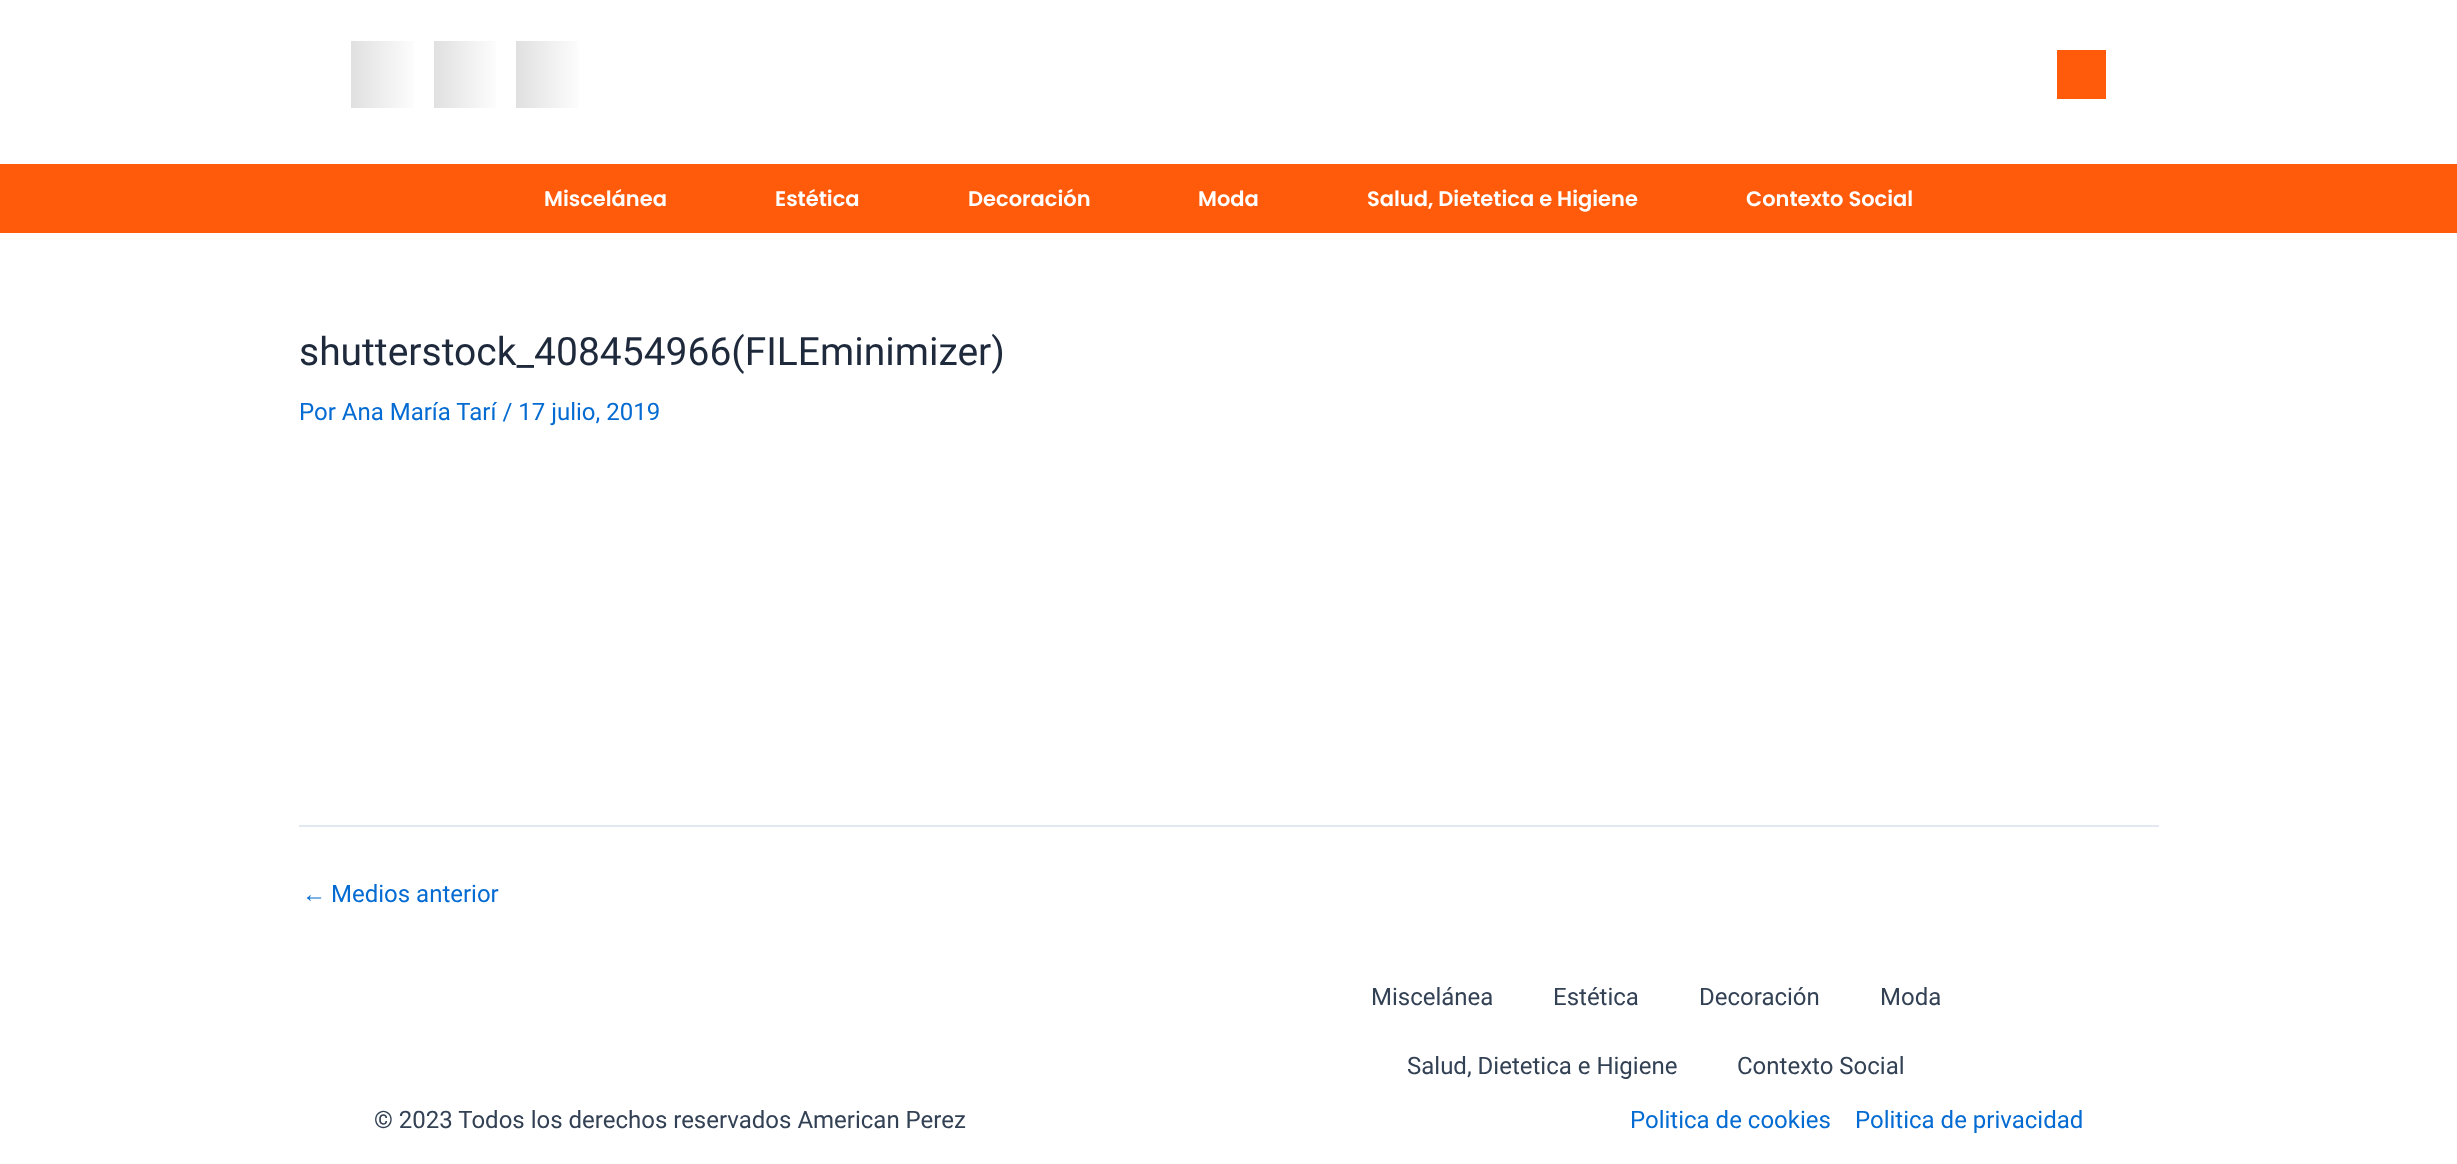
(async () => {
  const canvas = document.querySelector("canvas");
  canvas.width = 2457;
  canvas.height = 1164;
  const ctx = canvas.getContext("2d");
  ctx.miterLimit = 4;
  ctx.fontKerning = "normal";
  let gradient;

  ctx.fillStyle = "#ffffff";
  ctx.fillRect(0, 0, 2457, 1164);
  gradient = ctx.createLinearGradient(351, 74, 419, 74);
  gradient.addColorStop(0, "#e0e0e0");
  gradient.addColorStop(1, "#ffffff");
  ctx.fillStyle = gradient;
  ctx.fillRect(351, 41, 63, 67);
  gradient = ctx.createLinearGradient(434, 74, 501, 74);
  gradient.addColorStop(0, "#e0e0e0");
  gradient.addColorStop(1, "#ffffff");
  ctx.fillStyle = gradient;
  ctx.fillRect(434, 41, 62, 67);
  gradient = ctx.createLinearGradient(516, 74, 584, 74);
  gradient.addColorStop(0, "#e0e0e0");
  gradient.addColorStop(1, "#ffffff");
  ctx.fillStyle = gradient;
  ctx.fillRect(516, 41, 63, 67);
  for (const [x, y, w, h, color] of [
    [2057, 50, 49, 49, "#ff5b0b"],
    [0, 164, 2457, 69, "#ff5b0b"],
    [299, 825, 1860, 2, "#e2e8f0"],
  ]) {
    ctx.fillStyle = color;
    ctx.fillRect(x, y, w, h);
  }
  ctx.font = "600 21px Poppins";
  ctx.fillStyle = "#ffffff";
  for (const [text, x, y] of [
    ["Miscelánea", 544, 206],
    ["Estética", 775, 206],
    ["Decoración", 968, 206],
    ["Moda", 1198, 206],
    ["Salud, Dietetica e Higiene", 1367, 206],
    ["Contexto Social", 1746, 206],
  ]) {
    ctx.fillText(text, x, y);
  }
  ctx.font = "39px Roboto";
  ctx.fillStyle = "#1e293b";
  ctx.fillText("shutterstock_408454966(FILEminimizer)", 299, 365);
  ctx.font = "24px Roboto";
  ctx.fillStyle = "#046bd2";
  ctx.fillText("Por Ana María Tarí / 17 julio, 2019", 299, 420);
  ctx.font = "24px Liberation Sans";
  ctx.fillText("←", 302, 902);
  ctx.font = "24px Roboto";
  ctx.fillText("Medios anterior", 331, 902);
  ctx.fillStyle = "#334155";
  for (const [text, x, y] of [
    ["Miscelánea", 1371, 1005],
    ["Estética", 1553, 1005],
    ["Decoración", 1699, 1005],
    ["Moda", 1880, 1005],
    ["Salud, Dietetica e Higiene", 1407, 1074],
    ["Contexto Social", 1737, 1074],
    ["© 2023 Todos los derechos reservados American Perez", 374, 1128],
  ]) {
    ctx.fillText(text, x, y);
  }
  ctx.fillStyle = "#046bd2";
  ctx.fillText("Politica de cookies", 1630, 1128);
  ctx.fillText("Politica de privacidad", 1855, 1128);
})();
